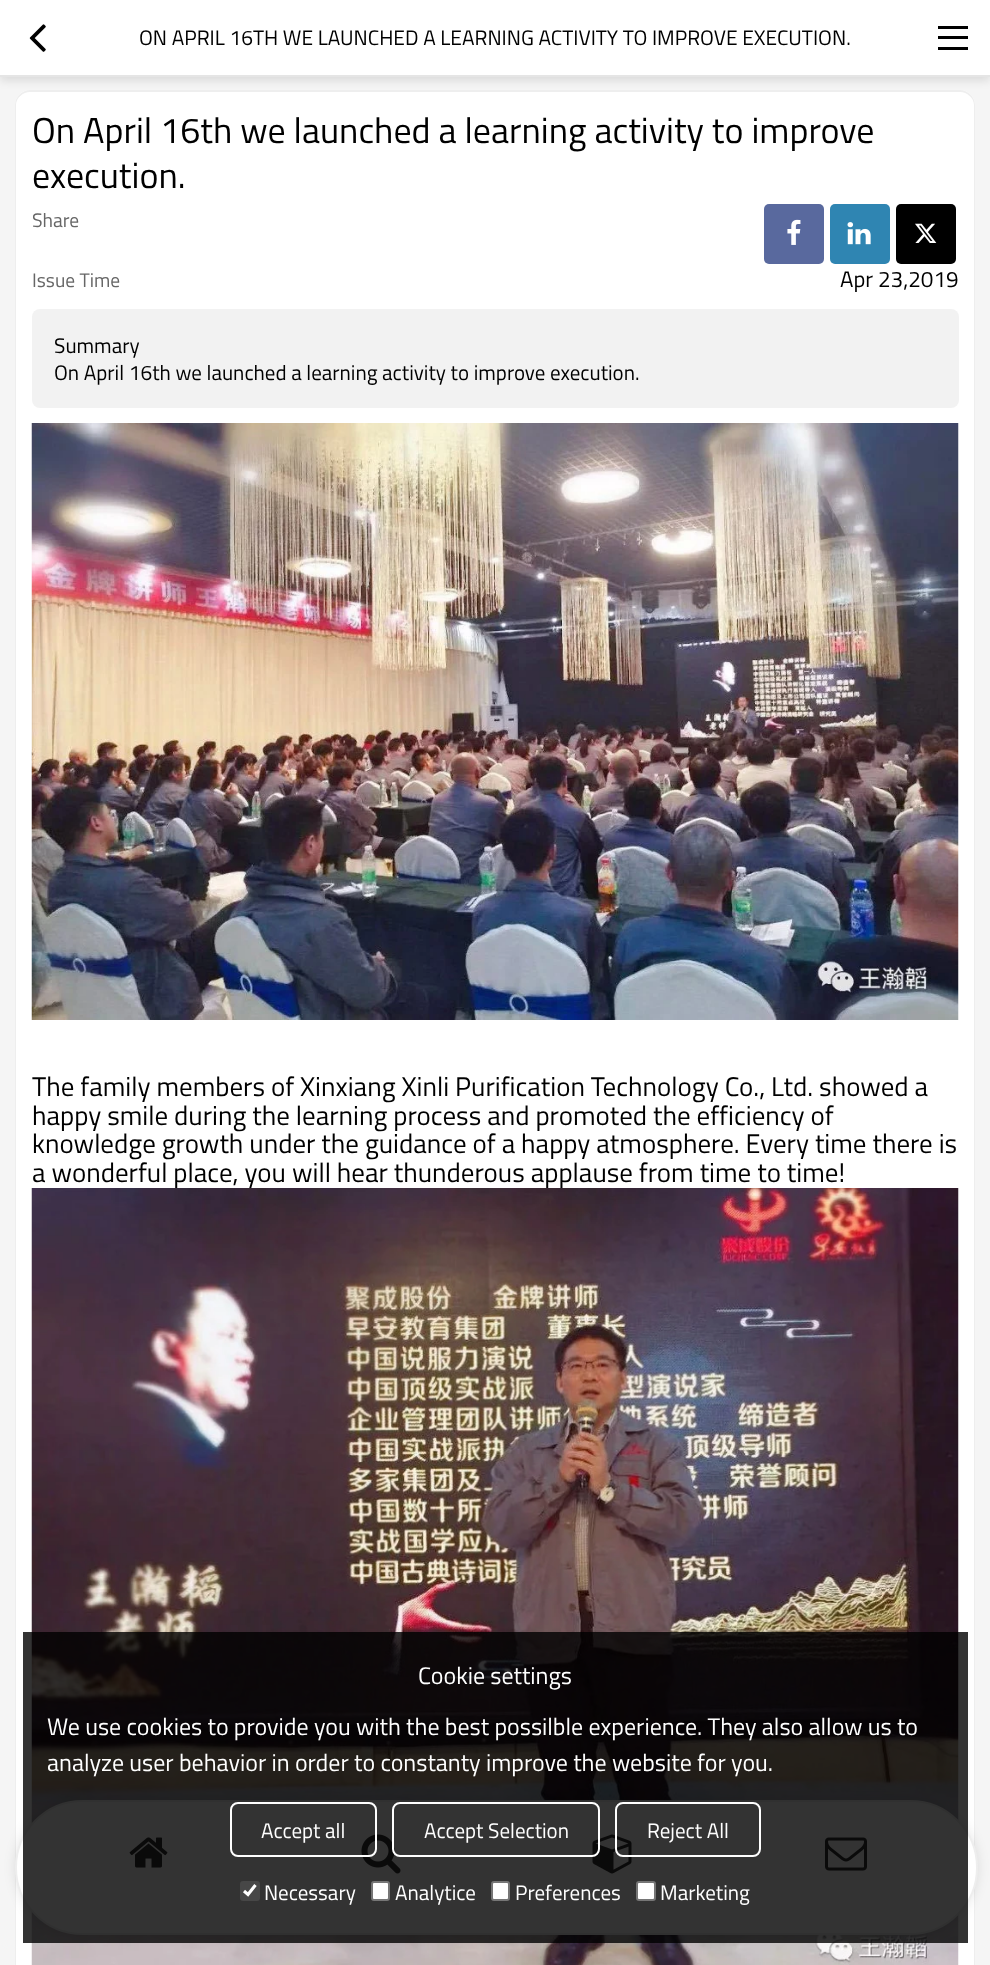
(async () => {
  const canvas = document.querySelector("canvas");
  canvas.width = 990;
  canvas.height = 1965;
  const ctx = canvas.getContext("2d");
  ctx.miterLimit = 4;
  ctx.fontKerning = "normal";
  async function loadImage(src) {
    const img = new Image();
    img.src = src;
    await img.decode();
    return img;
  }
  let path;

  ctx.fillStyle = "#f5f5f5";
  ctx.fillRect(0, 0, 990, 1965);
  ctx.fillStyle = "#ffffff";
  ctx.beginPath();
  ctx.roundRect(15, 90, 960, 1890, 15);
  ctx.fill();
  ctx.fillStyle = "#eeeeee";
  path = new Path2D("M30 90H960C968 90 975 97 975 105V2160C975 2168 968 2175 960 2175H30C22 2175 15 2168 15 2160V105C15 97 22 90 30 90ZM30 92H960C967 92 974 98 974 105V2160C974 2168 967 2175 960 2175H30C23 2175 16 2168 16 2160V105C16 98 23 92 30 92Z");
  ctx.fill(path, "evenodd");
  ctx.fillStyle = "rgba(0, 0, 0, 0.1)";
  ctx.filter = "blur(4px)";
  ctx.beginPath();
  ctx.rect(0, 5, 990, 76);
  ctx.fill();
  ctx.filter = "none";
  ctx.fillStyle = "#ffffff";
  ctx.fillRect(0, 0, 990, 75);
  ctx.fillStyle = "#e5e5e5";
  ctx.fillRect(0, 75, 990, 2);
  ctx.drawImage(await loadImage("img/1.png"), 29, 24, 17, 28);
  for (const [x, y, w, h, color] of [
    [938, 26, 30, 3, "#000000"],
    [938, 36, 30, 3, "#000000"],
    [938, 47, 30, 3, "#000000"],
  ]) {
    ctx.fillStyle = color;
    ctx.fillRect(x, y, w, h);
  }
  ctx.fillStyle = "#59699e";
  ctx.beginPath();
  ctx.roundRect(764, 204, 60, 60, 5);
  ctx.fill();
  ctx.drawImage(await loadImage("img/2.png"), 787, 219, 14, 26);
  ctx.fillStyle = "#2f85b2";
  ctx.beginPath();
  ctx.roundRect(830, 204, 60, 60, 5);
  ctx.fill();
  ctx.drawImage(await loadImage("img/3.png"), 847, 222, 24, 23);
  ctx.fillStyle = "#000000";
  ctx.beginPath();
  ctx.roundRect(896, 204, 60, 60, 5);
  ctx.fill();
  ctx.drawImage(await loadImage("img/4.png"), 915, 223, 22, 20);
  ctx.fillStyle = "#f2f2f2";
  ctx.beginPath();
  ctx.roundRect(32, 309, 927, 99, 8);
  ctx.fill();
  ctx.drawImage(await loadImage("img/5.png"), 31, 423, 928, 597);
  ctx.drawImage(await loadImage("img/6.png"), 31, 1188, 928, 777);
  ctx.fillStyle = "rgba(0, 0, 0, 0.1)";
  ctx.filter = "blur(6px)";
  ctx.beginPath();
  ctx.roundRect(15, 1800, 963, 135, 67.5);
  ctx.fill();
  ctx.filter = "none";
  ctx.fillStyle = "#ffffff";
  ctx.beginPath();
  ctx.roundRect(16, 1801, 961, 133, 66.5);
  ctx.fill();
  ctx.strokeStyle = "#eeeeee";
  ctx.lineWidth = 2;
  ctx.stroke();
  ctx.drawImage(await loadImage("img/7.png"), 129, 1837, 39, 31);
  ctx.drawImage(await loadImage("img/8.png"), 361, 1834, 40, 40);
  ctx.drawImage(await loadImage("img/9.png"), 592, 1834, 40, 40);
  ctx.drawImage(await loadImage("img/10.png"), 825, 1837, 42, 34);
  ctx.fillStyle = "rgba(0, 0, 0, 0.8)";
  ctx.fillRect(23, 1632, 945, 311);
  ctx.beginPath();
  ctx.roundRect(231, 1803, 145, 53, 7);
  ctx.strokeStyle = "#ffffff";
  ctx.stroke();
  ctx.beginPath();
  ctx.roundRect(393, 1803, 206, 53, 7);
  ctx.stroke();
  ctx.beginPath();
  ctx.roundRect(616, 1803, 144, 53, 7);
  ctx.stroke();
  ctx.fillStyle = "#474747";
  ctx.beginPath();
  ctx.roundRect(240, 1881, 20, 20, 3);
  ctx.fill();
  path = new Path2D("M244 1891L248 1894.5L255.5 1885");
  ctx.lineWidth = 3.1;
  ctx.stroke(path);
  ctx.fillStyle = "#ffffff";
  ctx.beginPath();
  ctx.roundRect(372, 1882, 17, 18, 2);
  ctx.fill();
  ctx.strokeStyle = "#767676";
  ctx.lineWidth = 2;
  ctx.stroke();
  ctx.beginPath();
  ctx.roundRect(492, 1882, 17, 18, 2);
  ctx.fill();
  ctx.stroke();
  ctx.beginPath();
  ctx.roundRect(637, 1882, 18, 18, 2);
  ctx.fill();
  ctx.stroke();
  ctx.font = "21px Titillium Web";
  ctx.fillStyle = "#000000";
  ctx.fillText("ON APRIL 16TH WE LAUNCHED A LEARNING ACTIVITY TO IMPROVE EXECUTION.", 139, 45);
  ctx.font = "36px Titillium Web";
  ctx.fillText("On April 16th we launched a learning activity to improve", 32, 143);
  ctx.fillText("execution.", 32, 188);
  ctx.font = "19.5px Titillium Web";
  ctx.fillStyle = "#666666";
  ctx.fillText("Share", 32, 227);
  ctx.fillText("Issue Time", 32, 287);
  ctx.font = "22.5px Titillium Web";
  ctx.fillStyle = "#000000";
  ctx.fillText("Apr 23,2019", 840, 287);
  ctx.font = "21px Titillium Web";
  ctx.fillText("Summary", 54, 353);
  ctx.fillText("On April 16th we launched a learning activity to improve execution.", 54, 380);
  ctx.font = "27px Titillium Web";
  for (const [text, x, y] of [
    ["The family members of Xinxiang Xinli Purification Technology Co., Ltd. showed a", 32, 1096],
    ["happy smile during the learning process and promoted the efficiency of", 32, 1125],
    ["knowledge growth under the guidance of a happy atmosphere. Every time there is", 32, 1153],
    ["a wonderful place, you will hear thunderous applause from time to time!", 32, 1182],
  ]) {
    ctx.fillText(text, x, y);
  }
  ctx.font = "24px Titillium Web";
  ctx.fillStyle = "#ffffff";
  for (const [text, x, y] of [
    ["Cookie settings", 418, 1684],
    ["We use cookies to provide you with the best possilble experience. They also allow us to", 47, 1735],
    ["analyze user behavior in order to constanty improve the website for you.", 47, 1771],
  ]) {
    ctx.fillText(text, x, y);
  }
  ctx.font = "21px Titillium Web";
  for (const [text, x, y] of [
    ["Accept all", 261, 1838],
    ["Accept Selection", 424, 1838],
    ["Reject All", 647, 1838],
    ["Necessary", 264, 1900],
    ["Analytice", 395, 1900],
    ["Preferences", 515, 1900],
    ["Marketing", 660, 1900],
  ]) {
    ctx.fillText(text, x, y);
  }
})();
